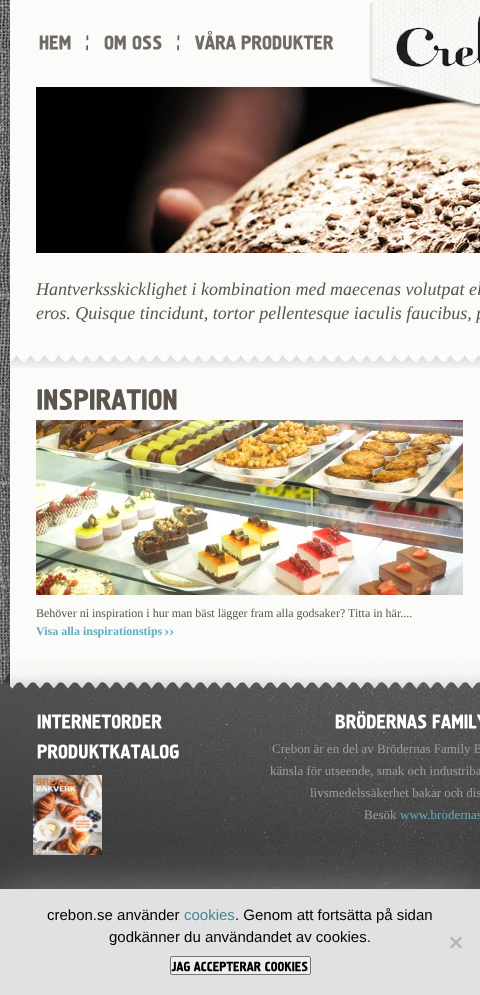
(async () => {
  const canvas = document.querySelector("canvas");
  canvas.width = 480;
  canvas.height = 995;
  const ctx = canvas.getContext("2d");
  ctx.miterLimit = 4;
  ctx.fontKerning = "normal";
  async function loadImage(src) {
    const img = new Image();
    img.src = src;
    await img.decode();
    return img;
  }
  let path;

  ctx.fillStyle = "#ffffff";
  ctx.fillRect(0, 0, 480, 995);
  ctx.drawImage(await loadImage("img/1.png"), 0, 0, 10, 687);
  ctx.drawImage(await loadImage("img/2.png"), 4, 0, 476, 689);
  ctx.drawImage(await loadImage("img/3.png"), 39, 35, 32, 15);
  ctx.drawImage(await loadImage("img/4.png"), 86, 35, 3, 16);
  ctx.drawImage(await loadImage("img/5.png"), 104, 35, 22, 15);
  ctx.drawImage(await loadImage("img/6.png"), 132, 35, 30, 15);
  ctx.drawImage(await loadImage("img/4.png"), 177, 35, 3, 16);
  ctx.drawImage(await loadImage("img/7.png"), 195, 31, 41, 19);
  ctx.drawImage(await loadImage("img/8.png"), 241, 35, 93, 15);
  ctx.drawImage(await loadImage("img/11.png"), 36, 87, 444, 166);
  ctx.drawImage(await loadImage("img/9.png"), 369, 0, 111, 109);
  ctx.drawImage(await loadImage("img/10.png"), 10, 355, 470, 13);
  ctx.drawImage(await loadImage("img/12.png"), 37, 389, 140, 21);
  ctx.drawImage(await loadImage("img/13.png"), 36, 420, 427, 175);
  ctx.drawImage(await loadImage("img/14.png"), 164, 629, 10, 7);
  ctx.drawImage(await loadImage("img/15.png"), 0, 658, 480, 32);
  ctx.drawImage(await loadImage("img/16.png"), 0, 690, 480, 199);
  ctx.drawImage(await loadImage("img/17.png"), 37, 714, 125, 15);
  ctx.drawImage(await loadImage("img/18.png"), 37, 744, 142, 15);
  ctx.drawImage(await loadImage("img/19.png"), 33, 775, 69, 80);
  ctx.drawImage(await loadImage("img/20.png"), 335, 711, 92, 18);
  ctx.drawImage(await loadImage("img/21.png"), 432, 714, 48, 15);
  ctx.fillStyle = "#888888";
  ctx.filter = "blur(25px)";
  ctx.beginPath();
  ctx.rect(0, 894, 480, 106);
  ctx.fill();
  ctx.filter = "none";
  ctx.fillStyle = "#e1e1e1";
  ctx.fillRect(0, 889, 480, 106);
  ctx.fillStyle = "#b1b1b1";
  path = new Path2D("M460.5 936.5L462 938L451.5 948.5L450 947Z");
  ctx.fill(path);
  path = new Path2D("M450 938L451.5 936.5L462 947L460.5 948.5Z");
  ctx.fill(path);
  ctx.fillStyle = "#efefef";
  ctx.beginPath();
  ctx.roundRect(170.5, 956.5, 140, 18, 1.5);
  ctx.fill();
  ctx.strokeStyle = "#767676";
  ctx.stroke();
  ctx.drawImage(await loadImage("img/22.png"), 171, 961, 19, 11);
  ctx.drawImage(await loadImage("img/23.png"), 193, 961, 68, 11);
  ctx.drawImage(await loadImage("img/24.png"), 265, 961, 43, 11);
  ctx.font = "italic 18px Liberation Serif";
  ctx.fillStyle = "#5c554c";
  ctx.fillText("Hantverksskicklighet i kombination med maecenas volutpat el", 36, 295);
  ctx.fillText("eros. Quisque tincidunt, tortor pellentesque iaculis faucibus, p", 36, 319);
  ctx.font = "12px Liberation Serif";
  ctx.fillText("Behöver ni inspiration i hur man bäst lägger fram alla godsaker? Titta in här....", 36, 617);
  ctx.font = "bold 12px Liberation Serif";
  ctx.fillStyle = "#5eaec2";
  ctx.fillText("Visa alla inspirationstips", 36, 635);
  ctx.font = "13px Liberation Serif";
  ctx.fillStyle = "#a39d96";
  for (const [text, x, y] of [
    ["Crebon är en del av Brödernas Family B", 272, 753],
    ["känsla för utseende, smak och industriba", 270, 775],
    ["livsmedelssäkerhet bakar och dis", 310, 797],
    ["Besök", 364, 819],
  ]) {
    ctx.fillText(text, x, y);
  }
  ctx.fillStyle = "#5eaec2";
  ctx.fillText("www.brodernas", 400, 819);
  ctx.font = "15px Liberation Sans";
  ctx.fillStyle = "#000000";
  ctx.fillText("crebon.se använder", 47, 920);
  ctx.fillStyle = "#478695";
  ctx.fillText("cookies", 184, 920);
  ctx.fillStyle = "#000000";
  ctx.fillText(". Genom att fortsätta på sidan", 235, 920);
  ctx.fillText("godkänner du användandet av cookies.", 109, 942);
})();
